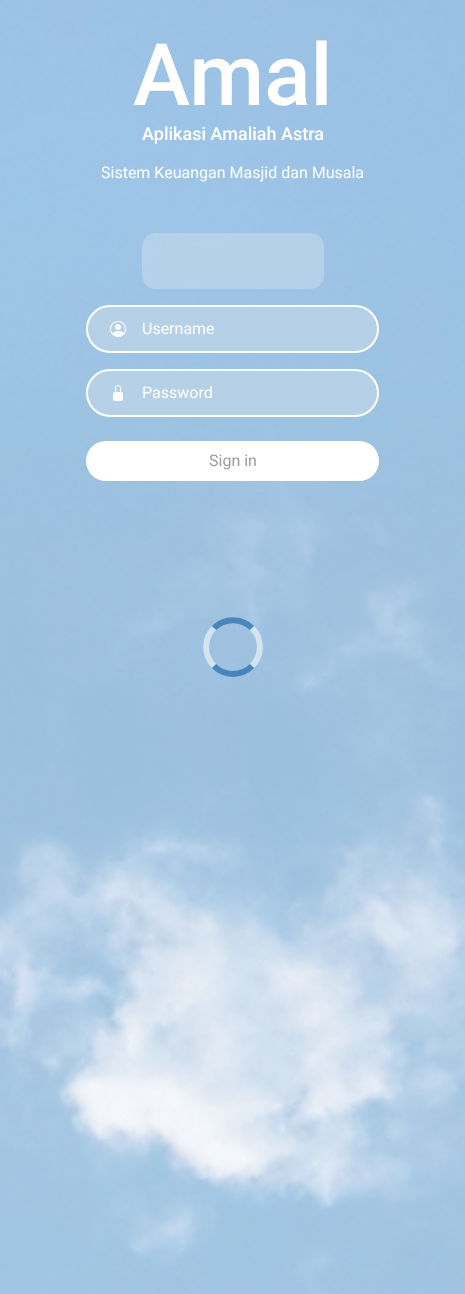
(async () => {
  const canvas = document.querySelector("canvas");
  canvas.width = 465;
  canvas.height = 1294;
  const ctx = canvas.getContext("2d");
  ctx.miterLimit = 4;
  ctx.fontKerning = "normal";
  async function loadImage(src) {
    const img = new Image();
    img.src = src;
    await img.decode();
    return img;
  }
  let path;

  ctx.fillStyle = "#ffffff";
  ctx.fillRect(0, 0, 465, 1294);
  ctx.drawImage(await loadImage("img/1.png"), 0, 0, 465, 1294);
  ctx.fillStyle = "rgba(196, 218, 236, 0.6)";
  ctx.beginPath();
  ctx.roundRect(142, 233, 182, 56, 14);
  ctx.fill();
  ctx.fillStyle = "#b5d0e7";
  ctx.beginPath();
  ctx.roundRect(87, 306, 291, 46, 23);
  ctx.fill();
  ctx.strokeStyle = "#ffffff";
  ctx.lineWidth = 2;
  ctx.stroke();
  ctx.drawImage(await loadImage("img/2.png"), 110, 321, 16, 16);
  ctx.beginPath();
  ctx.roundRect(87, 370, 291, 46, 23);
  ctx.fill();
  ctx.stroke();
  ctx.drawImage(await loadImage("img/3.png"), 113, 385, 10, 16);
  ctx.fillStyle = "#ffffff";
  ctx.beginPath();
  ctx.roundRect(86, 441, 293, 40, 20);
  ctx.fill();
  path = new Path2D("M214 628C224.5 617.5 241.5 617.5 252 628");
  ctx.strokeStyle = "rgba(0, 83, 158, 0.55)";
  ctx.lineWidth = 6;
  ctx.stroke(path);
  path = new Path2D("M252 628C262.5 638.5 262.5 655.5 252 666");
  ctx.strokeStyle = "rgba(255, 255, 255, 0.55)";
  ctx.stroke(path);
  path = new Path2D("M252 666C241.5 676.5 224.5 676.5 214 666");
  ctx.strokeStyle = "rgba(0, 83, 158, 0.55)";
  ctx.stroke(path);
  path = new Path2D("M214 666C203.5 655.5 203.5 638.5 214 628");
  ctx.strokeStyle = "rgba(255, 255, 255, 0.55)";
  ctx.stroke(path);
  ctx.font = "500 86px Roboto";
  ctx.fillText("Amal", 133, 105);
  ctx.font = "500 18px Roboto";
  ctx.fillText("Aplikasi Amaliah Astra", 142, 140);
  ctx.font = "16px Roboto";
  for (const [text, x, y] of [
    ["Sistem Keuangan Masjid dan Musala", 101, 178],
    ["Username", 142, 334],
    ["Password", 142, 398],
  ]) {
    ctx.fillText(text, x, y);
  }
  ctx.fillStyle = "#9c9c9c";
  ctx.fillText("Sign in", 209, 466);
})();
